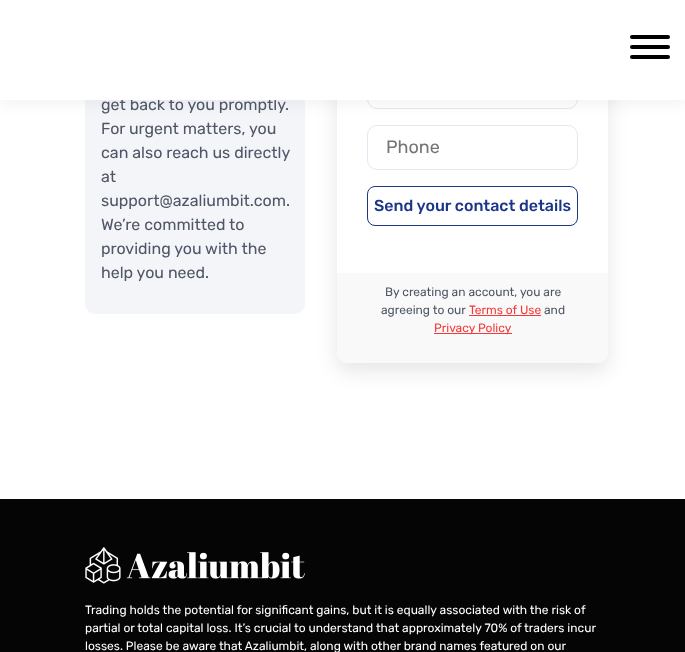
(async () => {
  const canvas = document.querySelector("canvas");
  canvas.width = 685;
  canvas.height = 652;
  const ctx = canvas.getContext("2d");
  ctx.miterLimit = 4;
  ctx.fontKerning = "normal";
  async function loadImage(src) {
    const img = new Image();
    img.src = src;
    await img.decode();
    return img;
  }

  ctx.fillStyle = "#ffffff";
  ctx.fillRect(0, 0, 685, 652);
  ctx.fillStyle = "#f4f5f9";
  ctx.beginPath();
  ctx.roundRect(85, -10, 220, 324, 10);
  ctx.fill();
  ctx.fillStyle = "rgba(0, 0, 0, 0.1)";
  ctx.filter = "blur(10px)";
  ctx.beginPath();
  ctx.roundRect(337, -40, 271, 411, 10);
  ctx.fill();
  ctx.filter = "none";
  ctx.fillStyle = "#ffffff";
  ctx.beginPath();
  ctx.roundRect(337, -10, 271, 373, 10);
  ctx.fill();
  ctx.beginPath();
  ctx.roundRect(367.5, 64.5, 210, 44, 9.5);
  ctx.strokeStyle = "#e2e8f0";
  ctx.stroke();
  ctx.beginPath();
  ctx.roundRect(367.5, 125.5, 210, 44, 9.5);
  ctx.stroke();
  ctx.fillStyle = "rgba(0, 0, 0, 0.05)";
  ctx.filter = "blur(7px)";
  ctx.beginPath();
  ctx.rect(0, 4, 685, 100);
  ctx.fill();
  ctx.filter = "none";
  ctx.beginPath();
  ctx.roundRect(367.5, 186.5, 210, 39, 7.5);
  ctx.strokeStyle = "#1b3687";
  ctx.stroke();
  ctx.fillStyle = "rgba(243, 243, 243, 0.5)";
  ctx.beginPath();
  ctx.roundRect(337, 273, 271, 90, [0, 0, 10, 10]);
  ctx.fill();
  for (const [x, y, w, h, color] of [
    [469, 315, 72, 1, "#f53838"],
    [434, 333, 78, 1, "#f53838"],
    [0, 499, 685, 153, "#050505"],
  ]) {
    ctx.fillStyle = color;
    ctx.fillRect(x, y, w, h);
  }
  ctx.drawImage(await loadImage("img/1.png"), 85, 547, 220, 37);
  ctx.font = "16px Rubik";
  ctx.fillStyle = "#4f5665";
  ctx.fillText("get back to you promptly.", 101, 110);
  ctx.fillStyle = "#ffffff";
  ctx.fillRect(0, 0, 685, 100);
  ctx.fillStyle = "#000000";
  ctx.beginPath();
  ctx.roundRect(630, 55, 40, 4, 2);
  ctx.fill();
  ctx.beginPath();
  ctx.roundRect(630, 35, 40, 4, 2);
  ctx.fill();
  ctx.beginPath();
  ctx.roundRect(630, 45, 40, 4, 2);
  ctx.fill();
  ctx.fillStyle = "#4f5665";
  for (const [text, x, y] of [
    ["For urgent matters, you", 101, 134],
    ["can also reach us directly", 101, 158],
    ["at", 101, 182],
    ["support@azaliumbit.com.", 101, 206],
    ["We’re committed to", 101, 230],
    ["providing you with the", 101, 254],
    ["help you need.", 101, 278],
  ]) {
    ctx.fillText(text, x, y);
  }
  ctx.font = "18px Rubik";
  ctx.fillStyle = "#757575";
  ctx.fillText("Phone", 386, 153);
  ctx.font = "500 16px Rubik";
  ctx.fillStyle = "#1b3687";
  ctx.fillText("Send your contact details", 374, 211);
  ctx.font = "12px Rubik";
  ctx.fillStyle = "#4f5665";
  ctx.fillText("By creating an account, you are", 385, 296);
  ctx.fillText("agreeing to our", 381, 314);
  ctx.fillStyle = "#f53838";
  ctx.fillText("Terms of Use", 469, 314);
  ctx.fillStyle = "#4f5665";
  ctx.fillText("and", 544, 314);
  ctx.fillStyle = "#f53838";
  ctx.fillText("Privacy Policy", 434, 332);
  ctx.fillStyle = "#ffffff";
  for (const [text, x, y] of [
    ["Trading holds the potential for significant gains, but it is equally associated with the risk of", 85, 614],
    ["partial or total capital loss. It’s crucial to understand that approximately 70% of traders incur", 85, 632],
    ["losses. Please be aware that Azaliumbit, along with other brand names featured on our", 85, 650],
  ]) {
    ctx.fillText(text, x, y);
  }
})();
